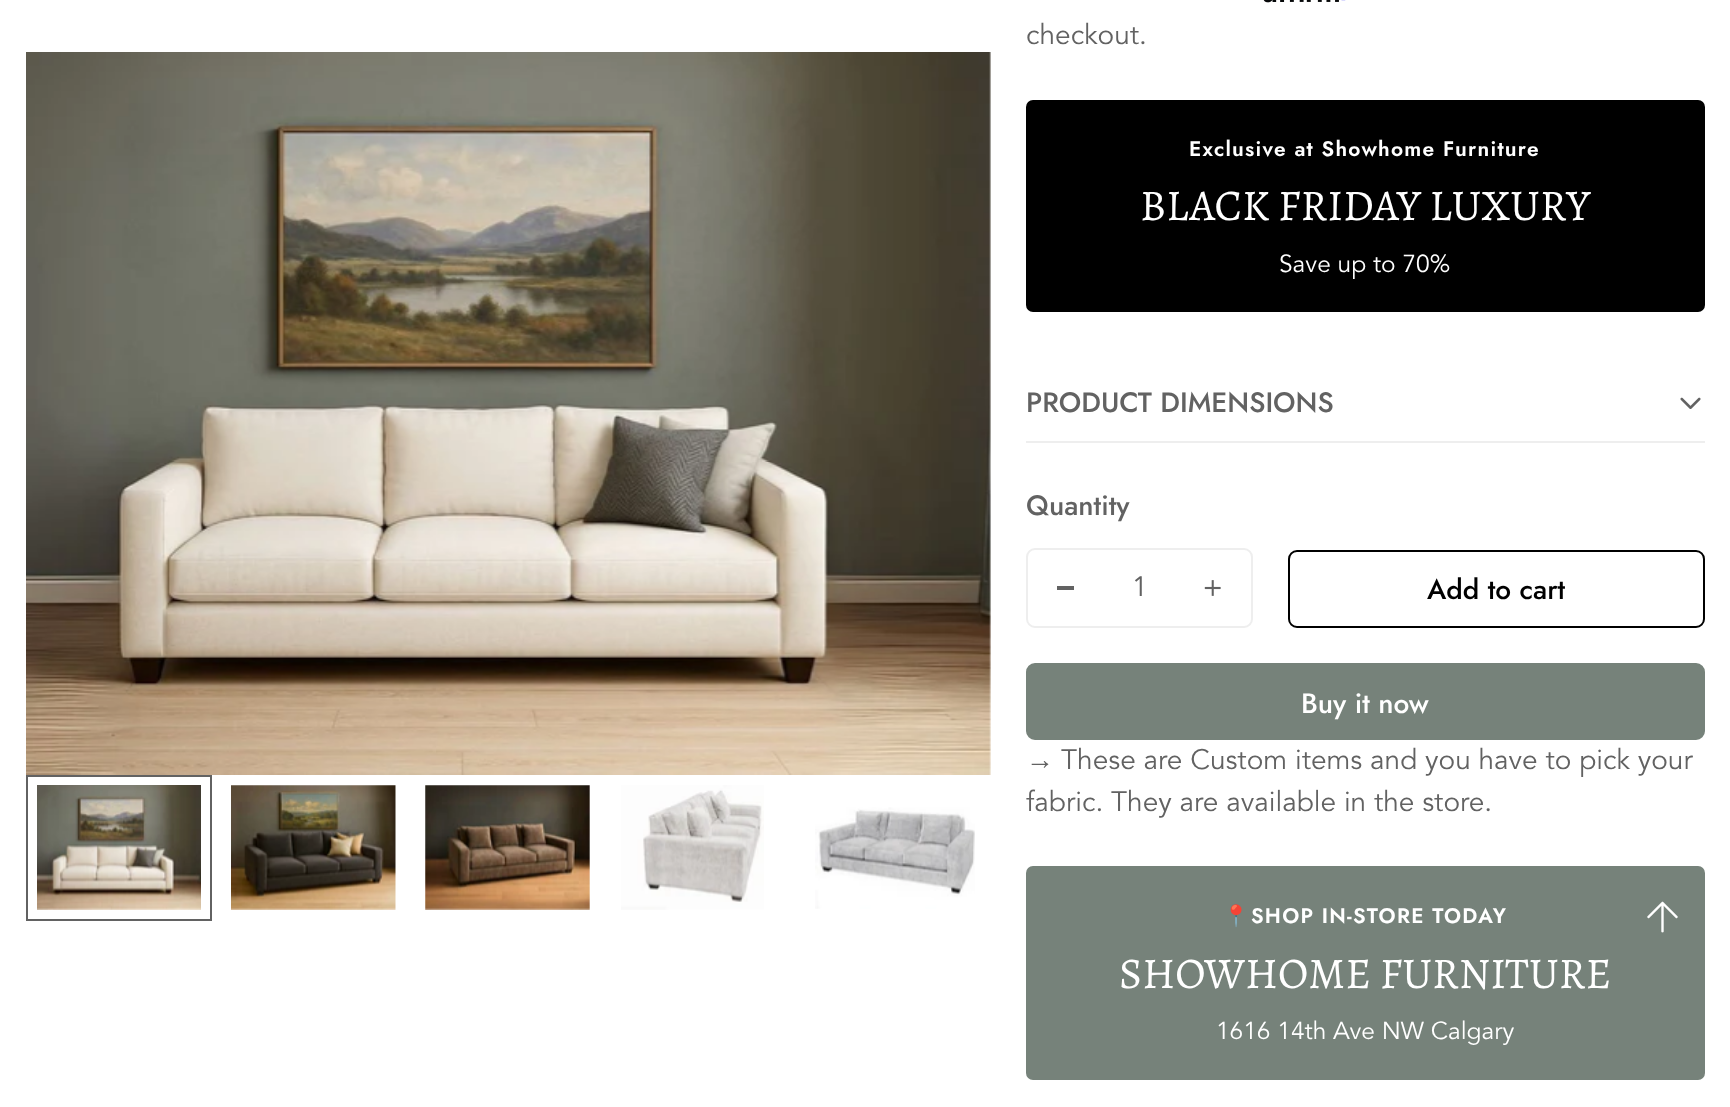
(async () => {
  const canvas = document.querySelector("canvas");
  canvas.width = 1730;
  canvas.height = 1107;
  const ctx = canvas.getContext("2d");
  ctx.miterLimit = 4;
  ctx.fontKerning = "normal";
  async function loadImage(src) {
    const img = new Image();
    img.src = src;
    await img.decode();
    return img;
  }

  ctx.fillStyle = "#ffffff";
  ctx.fillRect(0, 0, 1730, 1107);
  ctx.drawImage(await loadImage("img/1.png"), 26, 52, 965, 723);
  ctx.strokeStyle = "#626262";
  ctx.lineWidth = 2;
  ctx.strokeRect(27, 776, 184, 144);
  ctx.drawImage(await loadImage("img/2.png"), 37, 785, 164, 125);
  ctx.drawImage(await loadImage("img/3.png"), 231, 785, 165, 125);
  ctx.drawImage(await loadImage("img/4.png"), 425, 785, 165, 125);
  ctx.drawImage(await loadImage("img/5.png"), 621, 785, 143, 125);
  ctx.drawImage(await loadImage("img/6.png"), 815, 807, 160, 102);
  ctx.drawImage(await loadImage("img/7.png"), 1263, 0, 76, 3);
  ctx.drawImage(await loadImage("img/8.png"), 1341, 0, 5, 1);
  ctx.fillStyle = "#000000";
  ctx.beginPath();
  ctx.roundRect(1026, 100, 679, 212, 7);
  ctx.fill();
  ctx.fillStyle = "#eeeeee";
  ctx.fillRect(1026, 441, 679, 2);
  ctx.drawImage(await loadImage("img/9.png"), 1680, 397, 21, 12);
  ctx.beginPath();
  ctx.roundRect(1027, 549, 225, 78, 8);
  ctx.strokeStyle = "#eeeeee";
  ctx.stroke();
  ctx.fillStyle = "#626262";
  ctx.fillRect(1057, 586, 17, 4);
  ctx.drawImage(await loadImage("img/10.png"), 1204, 580, 17, 16);
  ctx.beginPath();
  ctx.roundRect(1289, 551, 415, 76, 8);
  ctx.strokeStyle = "#000000";
  ctx.stroke();
  ctx.fillStyle = "#76827a";
  ctx.beginPath();
  ctx.roundRect(1027, 664, 677, 75, 8);
  ctx.fill();
  ctx.strokeStyle = "#76827a";
  ctx.stroke();
  ctx.beginPath();
  ctx.roundRect(1026, 866, 679, 214, 7);
  ctx.fill();
  ctx.drawImage(await loadImage("img/11.png"), 1647, 901, 31, 32);
  ctx.font = "28px Avenir";
  ctx.fillStyle = "#626262";
  ctx.fillText("checkout.", 1026, 44);
  ctx.letterSpacing = "1.25px";
  ctx.font = "600 21px Jost";
  ctx.fillStyle = "#ffffff";
  ctx.fillText("Exclusive at Showhome Furniture", 1189, 156);
  ctx.letterSpacing = "0px";
  ctx.font = "43.75px Alegreya";
  ctx.fillText("BLACK FRIDAY LUXURY", 1140, 220);
  ctx.font = "24.5px Avenir";
  ctx.fillText("Save up to 70%", 1279, 272);
  ctx.font = "500 28px Jost";
  ctx.fillStyle = "#626262";
  ctx.fillText("PRODUCT DIMENSIONS", 1026, 412);
  ctx.fillText("Quantity", 1026, 515);
  ctx.font = "28px Avenir";
  ctx.fillText("1", 1132, 596);
  ctx.font = "500 28px Jost";
  ctx.fillStyle = "#000000";
  ctx.fillText("Add to cart", 1427, 599);
  ctx.fillStyle = "#ffffff";
  ctx.fillText("Buy it now", 1301, 713);
  ctx.font = "28px Liberation Serif";
  ctx.fillStyle = "#626262";
  ctx.fillText("→", 1026, 769);
  ctx.font = "28px Avenir";
  ctx.fillText("These are Custom items and you have to pick your", 1061, 769);
  ctx.fillText("fabric. They are available in the store.", 1026, 811);
  ctx.letterSpacing = "1.25px";
  ctx.font = "bold 21px Noto Color Emoji";
  ctx.fillStyle = "#ffffff";
  ctx.fillText("📍", 1223, 923);
  ctx.font = "600 21px Jost";
  ctx.fillText("SHOP IN-STORE TODAY", 1251, 923);
  ctx.letterSpacing = "0px";
  ctx.font = "43.75px Alegreya";
  ctx.fillText("SHOWHOME FURNITURE", 1119, 988);
  ctx.font = "24.5px Avenir";
  ctx.fillText("1616 14th Ave NW Calgary", 1216, 1039);
})();
